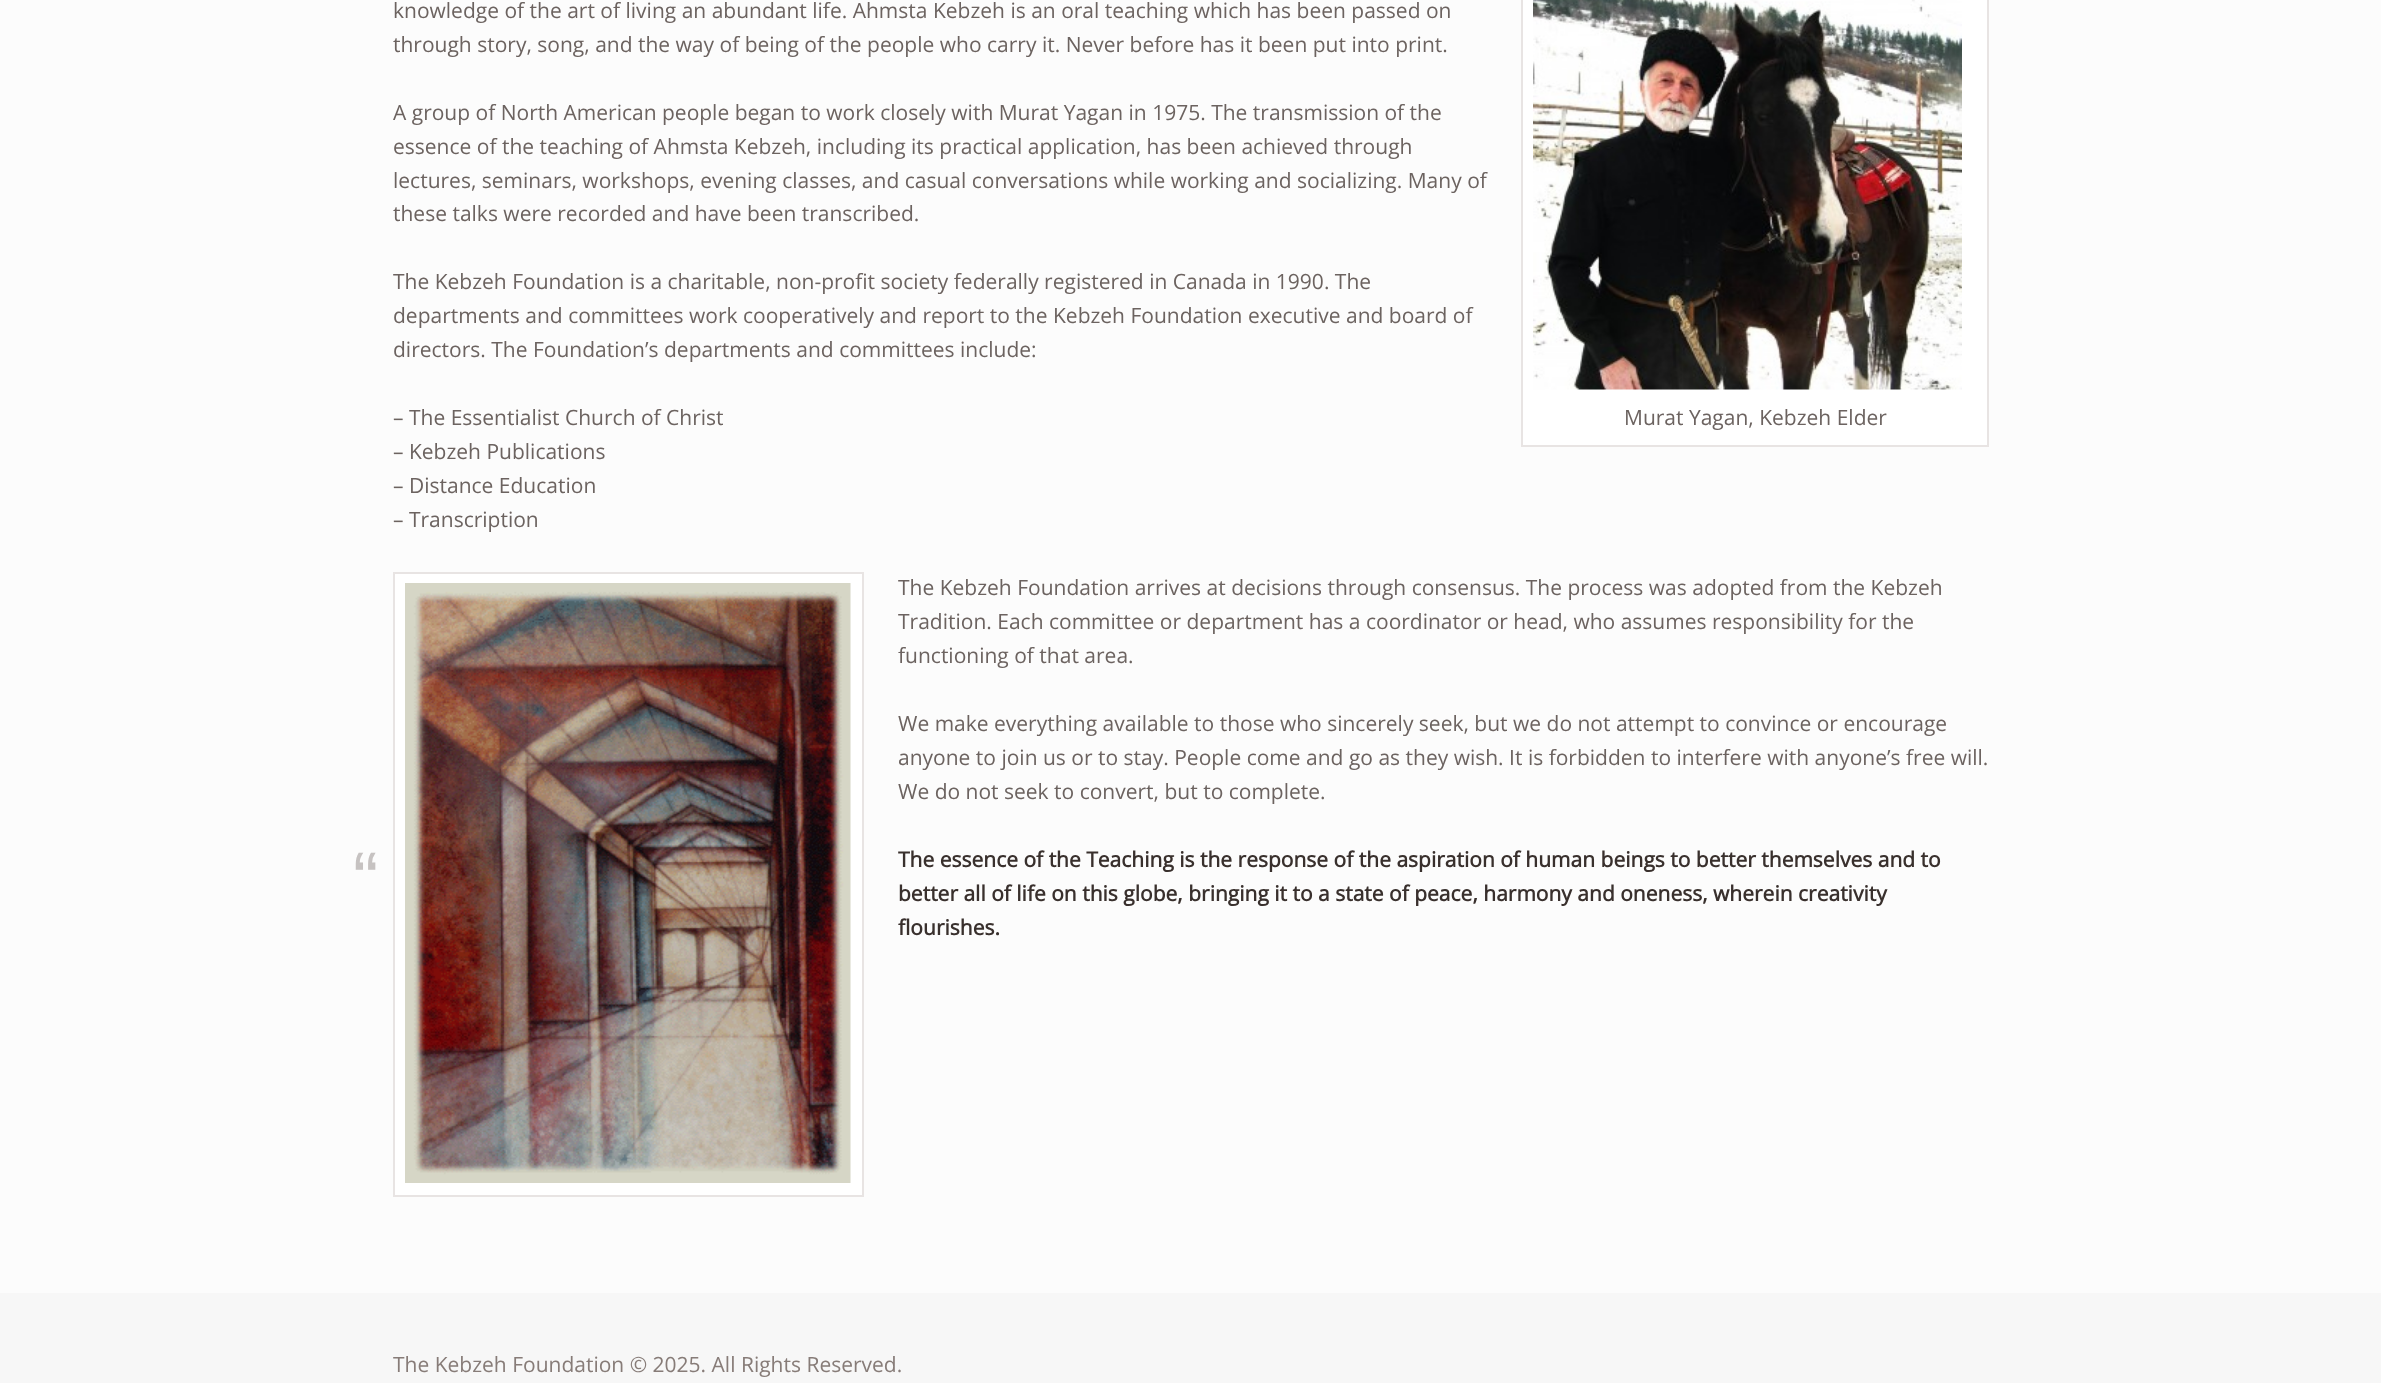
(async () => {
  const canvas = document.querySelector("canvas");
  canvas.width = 2381;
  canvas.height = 1383;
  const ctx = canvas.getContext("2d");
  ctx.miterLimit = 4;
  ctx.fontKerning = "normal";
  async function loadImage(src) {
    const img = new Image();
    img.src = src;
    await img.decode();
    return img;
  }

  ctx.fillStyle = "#fcfcfc";
  ctx.fillRect(0, 0, 2381, 1383);
  ctx.fillStyle = "#ffffff";
  ctx.beginPath();
  ctx.rect(1522, -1, 466, 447);
  ctx.fill();
  ctx.strokeStyle = "#e8e4e3";
  ctx.lineWidth = 2;
  ctx.stroke();
  ctx.drawImage(await loadImage("img/1.png"), 1533, 0, 429, 390);
  ctx.beginPath();
  ctx.rect(394, 573, 469, 623);
  ctx.fill();
  ctx.stroke();
  ctx.drawImage(await loadImage("img/2.png"), 405, 583, 446, 600);
  ctx.fillStyle = "#f7f7f7";
  ctx.fillRect(0, 1293, 2381, 90);
  ctx.font = "21px Open Sans";
  ctx.fillStyle = "#6c6360";
  for (const [text, x, y] of [
    ["knowledge of the art of living an abundant life. Ahmsta Kebzeh is an oral teaching which has been passed on", 393, 18],
    ["through story, song, and the way of being of the people who carry it. Never before has it been put into print.", 393, 52],
    ["A group of North American people began to work closely with Murat Yagan in 1975. The transmission of the", 393, 120],
    ["essence of the teaching of Ahmsta Kebzeh, including its practical application, has been achieved through", 393, 154],
    ["lectures, seminars, workshops, evening classes, and casual conversations while working and socializing. Many of", 393, 188],
    ["these talks were recorded and have been transcribed.", 393, 221],
    ["The Kebzeh Foundation is a charitable, non-profit society federally registered in Canada in 1990. The", 393, 289],
    ["departments and committees work cooperatively and report to the Kebzeh Foundation executive and board of", 393, 323],
    ["directors. The Foundation’s departments and committees include:", 393, 357],
    ["– The Essentialist Church of Christ", 393, 425],
    ["– Kebzeh Publications", 393, 459],
    ["– Distance Education", 393, 493],
    ["– Transcription", 393, 527],
    ["Murat Yagan, Kebzeh Elder", 1624, 425],
    ["The Kebzeh Foundation arrives at decisions through consensus. The process was adopted from the Kebzeh", 898, 595],
    ["Tradition. Each committee or department has a coordinator or head, who assumes responsibility for the", 898, 629],
    ["functioning of that area.", 898, 663],
    ["We make everything available to those who sincerely seek, but we do not attempt to convince or encourage", 898, 731],
    ["anyone to join us or to stay. People come and go as they wish. It is forbidden to interfere with anyone’s free will.", 898, 765],
    ["We do not seek to convert, but to complete.", 898, 799],
  ]) {
    ctx.fillText(text, x, y);
  }
  ctx.font = "76px Liberation Sans";
  ctx.fillStyle = "#c6c2c1";
  ctx.fillText("“", 353, 905);
  ctx.font = "bold 21px Open Sans";
  ctx.fillStyle = "#39302d";
  for (const [text, x, y] of [
    ["The essence of the Teaching is the response of the aspiration of human beings to better themselves and to", 898, 867],
    ["better all of life on this globe, bringing it to a state of peace, harmony and oneness, wherein creativity", 898, 901],
    ["flourishes.", 898, 935],
  ]) {
    ctx.fillText(text, x, y);
  }
  ctx.font = "21px Open Sans";
  ctx.fillStyle = "#877c78";
  ctx.fillText("The Kebzeh Foundation © 2025. All Rights Reserved.", 393, 1372);
})();
